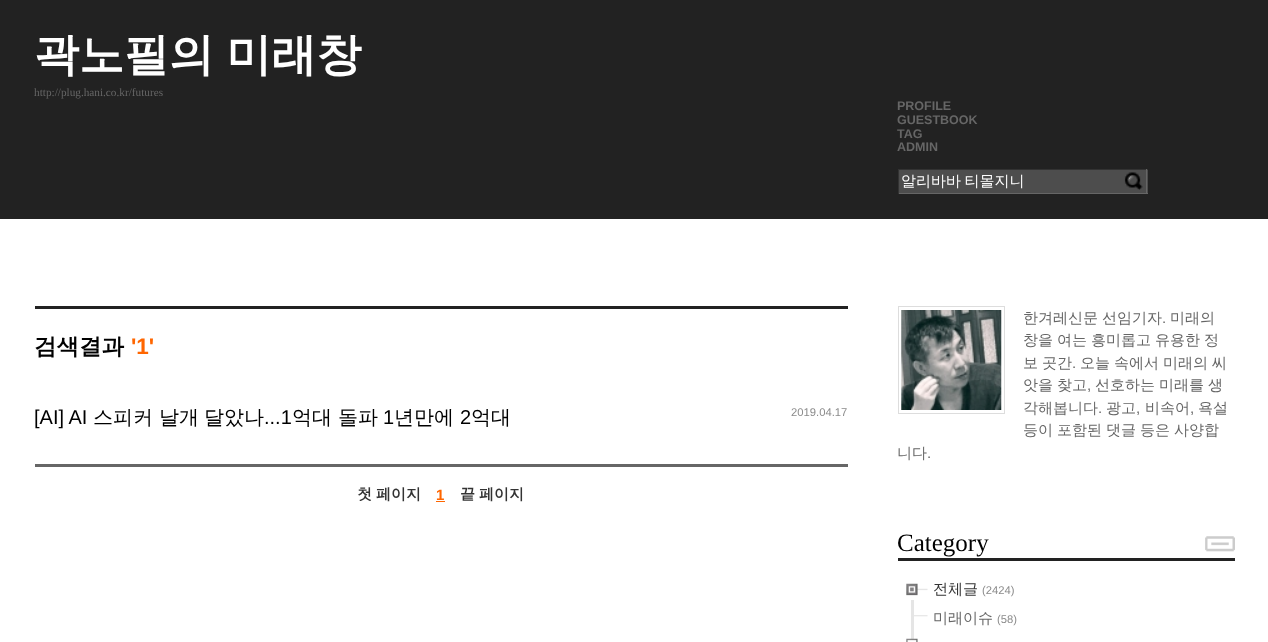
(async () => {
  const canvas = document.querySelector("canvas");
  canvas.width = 1268;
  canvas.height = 642;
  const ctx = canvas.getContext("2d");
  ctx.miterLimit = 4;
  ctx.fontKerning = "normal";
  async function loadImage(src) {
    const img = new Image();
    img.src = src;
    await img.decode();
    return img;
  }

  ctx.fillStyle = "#ffffff";
  ctx.fillRect(0, 0, 1268, 642);
  for (const [x, y, w, h, color] of [
    [0, 0, 1268, 219, "#222222"],
    [899, 170, 249, 23, "#4d4d4d"],
    [898, 169, 250, 1, "#333333"],
    [1146, 169, 1, 25, "#666666"],
    [898, 193, 250, 1, "#666666"],
    [898, 169, 1, 25, "#333333"],
  ]) {
    ctx.fillStyle = color;
    ctx.fillRect(x, y, w, h);
  }
  ctx.drawImage(await loadImage("img/1.png"), 1124, 172, 19, 18);
  for (const [x, y, w, h, color] of [
    [35, 306, 813, 3, "#222222"],
    [35, 464, 813, 3, "#666666"],
    [436, 501, 9, 1, "#ff6600"],
  ]) {
    ctx.fillStyle = color;
    ctx.fillRect(x, y, w, h);
  }
  ctx.strokeStyle = "#dddddd";
  ctx.strokeRect(898.5, 306.5, 106, 107);
  ctx.drawImage(await loadImage("img/2.png"), 901, 310, 101, 100);
  ctx.drawImage(await loadImage("img/3.png"), 1205, 536, 30, 16);
  ctx.fillStyle = "#222222";
  ctx.fillRect(898, 558, 337, 3);
  ctx.drawImage(await loadImage("img/4.png"), 906, 583, 22, 13);
  ctx.fillStyle = "#e5e5e5";
  ctx.fillRect(911, 600, 3, 42);
  ctx.drawImage(await loadImage("img/5.png"), 914, 615, 14, 2);
  ctx.drawImage(await loadImage("img/6.png"), 906, 638, 12, 4);
  ctx.wordSpacing = "-1px";
  ctx.font = "bold 45px WenQuanYi Zen Hei";
  ctx.fillStyle = "#ffffff";
  ctx.fillText("곽노필의 미래창", 34, 70);
  ctx.wordSpacing = "0px";
  ctx.font = "11.25px Liberation Serif";
  ctx.fillStyle = "#666666";
  ctx.fillText("http://plug.hani.co.kr/futures", 34, 96);
  ctx.font = "bold 12.5px Liberation Sans";
  for (const [text, x, y] of [
    ["PROFILE", 897, 110],
    ["GUESTBOOK", 897, 124],
    ["TAG", 897, 138],
    ["ADMIN", 897, 151],
  ]) {
    ctx.fillText(text, x, y);
  }
  ctx.wordSpacing = "-1px";
  ctx.font = "500 15px WenQuanYi Zen Hei";
  ctx.fillStyle = "#ffffff";
  ctx.fillText("알리바바 티몰지니", 901, 186);
  ctx.wordSpacing = "0px";
  ctx.font = "bold 22.5px WenQuanYi Zen Hei";
  ctx.fillStyle = "#000000";
  ctx.fillText("검색결과", 34, 354);
  ctx.font = "bold 22.5px Liberation Sans";
  ctx.fillStyle = "#ff6600";
  ctx.fillText("'1'", 131, 354);
  ctx.font = "20px Liberation Sans";
  ctx.fillStyle = "#000000";
  ctx.fillText("[AI] AI", 34, 424);
  ctx.font = "500 20px WenQuanYi Zen Hei";
  for (const [text, x, y] of [
    ["스피커", 93, 424],
    ["날개", 159, 424],
    ["달았나", 204, 424],
  ]) {
    ctx.fillText(text, x, y);
  }
  ctx.font = "20px Liberation Sans";
  ctx.fillText("...1", 264, 424);
  ctx.font = "500 20px WenQuanYi Zen Hei";
  ctx.fillText("억대", 292, 424);
  ctx.fillText("돌파", 338, 424);
  ctx.font = "20px Liberation Sans";
  ctx.fillText("1", 383, 424);
  ctx.font = "500 20px WenQuanYi Zen Hei";
  ctx.fillText("년만에", 394, 424);
  ctx.font = "20px Liberation Sans";
  ctx.fillText("2", 460, 424);
  ctx.font = "500 20px WenQuanYi Zen Hei";
  ctx.fillText("억대", 471, 424);
  ctx.font = "11.25px Liberation Sans";
  ctx.fillStyle = "#8b8b8b";
  ctx.fillText("2019.04.17", 791, 416);
  ctx.wordSpacing = "-0.5px";
  ctx.font = "bold 15px WenQuanYi Zen Hei";
  ctx.fillStyle = "#333333";
  ctx.fillText("첫 페이지", 357, 499);
  ctx.wordSpacing = "0px";
  ctx.font = "bold 15px Liberation Sans";
  ctx.fillStyle = "#ff6600";
  ctx.fillText("1", 436, 500);
  ctx.wordSpacing = "-0.5px";
  ctx.font = "bold 15px WenQuanYi Zen Hei";
  ctx.fillStyle = "#333333";
  ctx.fillText("끝 페이지", 460, 499);
  ctx.font = "500 15px WenQuanYi Zen Hei";
  ctx.fillStyle = "#666666";
  ctx.fillText("한겨레신문 선임기자", 1023, 323);
  ctx.wordSpacing = "0px";
  ctx.font = "15px Liberation Sans";
  ctx.fillText(".", 1162, 323);
  ctx.font = "500 15px WenQuanYi Zen Hei";
  ctx.fillText("미래의", 1170, 323);
  ctx.wordSpacing = "-0.5px";
  ctx.fillText("창을 여는 흥미롭고 유용한 정", 1023, 345);
  ctx.fillText("보 곳간", 1023, 368);
  ctx.wordSpacing = "0px";
  ctx.font = "15px Liberation Sans";
  ctx.fillText(".", 1072, 368);
  ctx.wordSpacing = "-0.5px";
  ctx.font = "500 15px WenQuanYi Zen Hei";
  ctx.fillText("오늘 속에서 미래의 씨", 1080, 368);
  ctx.fillText("앗을 찾고", 1023, 390);
  ctx.wordSpacing = "0px";
  ctx.font = "15px Liberation Sans";
  ctx.fillText(",", 1087, 390);
  ctx.wordSpacing = "-0.5px";
  ctx.font = "500 15px WenQuanYi Zen Hei";
  ctx.fillText("선호하는 미래를 생", 1095, 390);
  ctx.wordSpacing = "0px";
  ctx.fillText("각해봅니다", 1023, 413);
  ctx.font = "15px Liberation Sans";
  ctx.fillText(".", 1098, 413);
  ctx.font = "500 15px WenQuanYi Zen Hei";
  ctx.fillText("광고", 1106, 413);
  ctx.font = "15px Liberation Sans";
  ctx.fillText(",", 1136, 413);
  ctx.font = "500 15px WenQuanYi Zen Hei";
  ctx.fillText("비속어", 1145, 413);
  ctx.font = "15px Liberation Sans";
  ctx.fillText(",", 1190, 413);
  ctx.font = "500 15px WenQuanYi Zen Hei";
  ctx.fillText("욕설", 1198, 413);
  ctx.wordSpacing = "-0.5px";
  ctx.fillText("등이 포함된 댓글 등은 사양합", 1023, 435);
  ctx.wordSpacing = "0px";
  ctx.fillText("니다", 897, 458);
  ctx.font = "15px Liberation Sans";
  ctx.fillText(".", 927, 458);
  ctx.font = "25px Liberation Serif";
  ctx.fillStyle = "#000000";
  ctx.fillText("Category", 897, 551);
  ctx.font = "500 15px WenQuanYi Zen Hei";
  ctx.fillStyle = "#333333";
  ctx.fillText("전체글", 933, 594);
  ctx.font = "11.25px Liberation Sans";
  ctx.fillStyle = "#8b8b8b";
  ctx.fillText("(2424)", 982, 594);
  ctx.font = "500 15px WenQuanYi Zen Hei";
  ctx.fillStyle = "#666666";
  ctx.fillText("미래이슈", 933, 623);
  ctx.font = "11.25px Liberation Sans";
  ctx.fillStyle = "#8b8b8b";
  ctx.fillText("(58)", 997, 623);
})();
